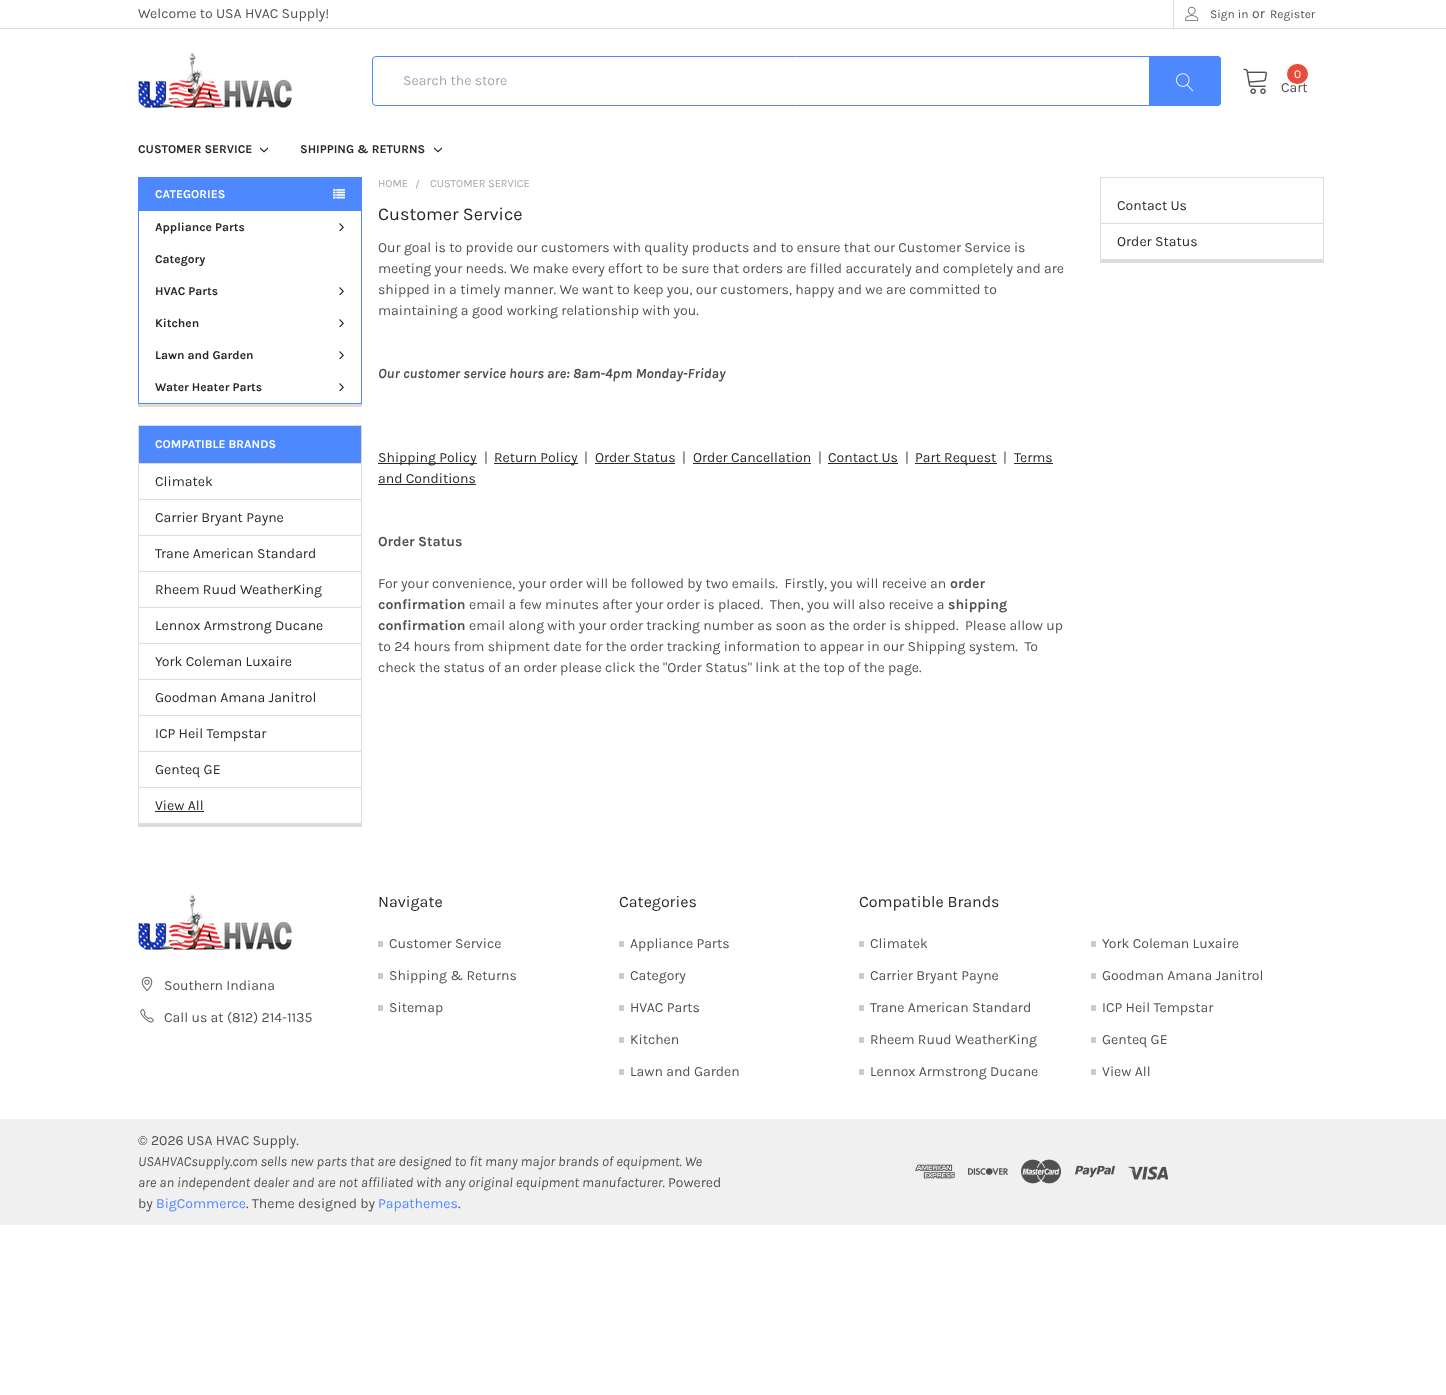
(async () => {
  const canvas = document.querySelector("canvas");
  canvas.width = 1446;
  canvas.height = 1395;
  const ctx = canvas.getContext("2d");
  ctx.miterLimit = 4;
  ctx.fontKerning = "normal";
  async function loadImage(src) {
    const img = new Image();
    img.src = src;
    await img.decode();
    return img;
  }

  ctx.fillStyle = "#ffffff";
  ctx.fillRect(0, 0, 1446, 1395);
  ctx.fillStyle = "#dcdcdc";
  ctx.fillRect(0, 28, 1446, 1);
  ctx.fillRect(1173, 0, 1, 28);
  ctx.drawImage(await loadImage("img/1.png"), 1185, 6, 14, 15);
  ctx.drawImage(await loadImage("img/2.png"), 138, 52, 154, 57);
  ctx.beginPath();
  ctx.roundRect(372.5, 56.5, 848, 49, 3.5);
  ctx.strokeStyle = "#4d88ff";
  ctx.stroke();
  ctx.fillStyle = "#4d88ff";
  ctx.beginPath();
  ctx.roundRect(1149, 56, 72, 50, [0, 4, 4, 0]);
  ctx.fill();
  ctx.drawImage(await loadImage("img/3.png"), 1176, 73, 17, 19);
  ctx.drawImage(await loadImage("img/4.png"), 1243, 68, 24, 26);
  ctx.drawImage(await loadImage("img/5.png"), 260, 147, 8, 6);
  ctx.drawImage(await loadImage("img/5.png"), 434, 147, 8, 6);
  ctx.fillStyle = "#dcdcdc";
  ctx.fillRect(138, 404, 224, 3);
  ctx.fillStyle = "#4d88ff";
  ctx.fillRect(138, 177, 224, 34);
  ctx.drawImage(await loadImage("img/6.png"), 333, 189, 12, 10);
  for (const [x, y, w, h, color] of [
    [361, 211, 1, 193, "#4d88ff"],
    [138, 403, 224, 1, "#4d88ff"],
    [138, 211, 1, 193, "#4d88ff"],
  ]) {
    ctx.fillStyle = color;
    ctx.fillRect(x, y, w, h);
  }
  ctx.drawImage(await loadImage("img/7.png"), 339, 223, 5, 8);
  ctx.drawImage(await loadImage("img/7.png"), 339, 287, 5, 8);
  ctx.drawImage(await loadImage("img/7.png"), 339, 319, 5, 8);
  ctx.drawImage(await loadImage("img/7.png"), 339, 351, 5, 8);
  ctx.drawImage(await loadImage("img/7.png"), 339, 383, 5, 8);
  ctx.fillStyle = "#dcdcdc";
  ctx.fillRect(138, 824, 224, 3);
  ctx.strokeStyle = "#dcdcdc";
  ctx.strokeRect(138.5, 425.5, 223, 398);
  for (const [x, y, w, h, color] of [
    [139, 426, 222, 37, "#4d88ff"],
    [139, 463, 222, 1, "#dcdcdc"],
    [139, 499, 222, 1, "#dcdcdc"],
    [139, 535, 222, 1, "#dcdcdc"],
    [139, 571, 222, 1, "#dcdcdc"],
    [139, 607, 222, 1, "#dcdcdc"],
    [139, 643, 222, 1, "#dcdcdc"],
    [139, 679, 222, 1, "#dcdcdc"],
    [139, 715, 222, 1, "#dcdcdc"],
    [139, 751, 222, 1, "#dcdcdc"],
    [139, 787, 222, 1, "#dcdcdc"],
    [155, 811, 49, 1, "#282828"],
    [378, 463, 99, 1, "#282828"],
    [494, 463, 84, 1, "#282828"],
    [595, 463, 80, 1, "#282828"],
    [693, 463, 118, 1, "#282828"],
    [828, 463, 70, 1, "#282828"],
    [915, 463, 82, 1, "#282828"],
    [1014, 463, 39, 1, "#282828"],
    [378, 484, 98, 1, "#282828"],
    [1100, 260, 224, 3, "#dcdcdc"],
  ]) {
    ctx.fillStyle = color;
    ctx.fillRect(x, y, w, h);
  }
  ctx.strokeRect(1100.5, 177.5, 223, 82);
  ctx.fillRect(1101, 223, 222, 1);
  ctx.drawImage(await loadImage("img/2.png"), 138, 894, 154, 57);
  ctx.drawImage(await loadImage("img/8.png"), 141, 976, 12, 15);
  ctx.drawImage(await loadImage("img/9.png"), 140, 1009, 14, 14);
  for (const [x, y, w, h, color] of [
    [378, 941, 5, 6, "#cbcbcb"],
    [378, 973, 5, 6, "#cbcbcb"],
    [378, 1005, 5, 6, "#cbcbcb"],
    [619, 941, 5, 6, "#cbcbcb"],
    [619, 973, 5, 6, "#cbcbcb"],
    [619, 1005, 5, 6, "#cbcbcb"],
    [619, 1037, 5, 6, "#cbcbcb"],
    [619, 1069, 5, 6, "#cbcbcb"],
    [859, 941, 5, 6, "#cbcbcb"],
    [1091, 941, 5, 6, "#cbcbcb"],
    [859, 973, 5, 6, "#cbcbcb"],
    [1091, 973, 5, 6, "#cbcbcb"],
    [859, 1005, 5, 6, "#cbcbcb"],
    [1091, 1005, 5, 6, "#cbcbcb"],
    [859, 1037, 5, 6, "#cbcbcb"],
    [1091, 1037, 5, 6, "#cbcbcb"],
    [859, 1069, 5, 6, "#cbcbcb"],
    [1091, 1069, 5, 6, "#cbcbcb"],
    [0, 1119, 1446, 106, "#f0f0f0"],
  ]) {
    ctx.fillStyle = color;
    ctx.fillRect(x, y, w, h);
  }
  ctx.drawImage(await loadImage("img/10.png"), 915, 1164, 40, 15);
  ctx.drawImage(await loadImage("img/11.png"), 968, 1168, 40, 7);
  ctx.drawImage(await loadImage("img/12.png"), 1021, 1159, 40, 25);
  ctx.drawImage(await loadImage("img/13.png"), 1075, 1165, 40, 13);
  ctx.drawImage(await loadImage("img/14.png"), 1128, 1166, 40, 14);
  ctx.font = "14px Karla";
  ctx.fillStyle = "#505050";
  ctx.fillText("Welcome to USA HVAC Supply!", 138, 18);
  ctx.font = "12px Karla";
  ctx.fillText("Sign in", 1210, 18);
  ctx.font = "14px Karla";
  ctx.fillText("or", 1252, 18);
  ctx.font = "12px Karla";
  ctx.fillText("Register", 1270, 18);
  ctx.font = "14px Karla";
  ctx.fillStyle = "#a5a5a5";
  ctx.fillText("Search the store", 403, 85);
  ctx.fillStyle = "#505050";
  ctx.fillText("Cart", 1281, 92);
  ctx.fillStyle = "#e74c3c";
  ctx.beginPath();
  ctx.roundRect(1287, 64, 21, 20, 10);
  ctx.fill();
  ctx.font = "12px Karla";
  ctx.fillStyle = "#ffffff";
  ctx.fillText("0", 1294, 78);
  ctx.font = "bold 12px Karla";
  ctx.fillStyle = "#282828";
  ctx.fillText("CUSTOMER SERVICE", 138, 153);
  ctx.fillText("SHIPPING & RETURNS", 300, 153);
  ctx.fillStyle = "#ffffff";
  ctx.fillText("CATEGORIES", 155, 198);
  ctx.fillStyle = "#282828";
  for (const [text, x, y] of [
    ["Appliance Parts", 155, 231],
    ["Category", 155, 263],
    ["HVAC Parts", 155, 295],
    ["Kitchen", 155, 327],
    ["Lawn and Garden", 155, 359],
    ["Water Heater Parts", 155, 391],
  ]) {
    ctx.fillText(text, x, y);
  }
  ctx.fillStyle = "#ffffff";
  ctx.fillText("COMPATIBLE BRANDS", 155, 448);
  ctx.font = "14px Karla";
  ctx.fillStyle = "#282828";
  for (const [text, x, y] of [
    ["Climatek", 155, 486],
    ["Carrier Bryant Payne", 155, 522],
    ["Trane American Standard", 155, 558],
    ["Rheem Ruud WeatherKing", 155, 594],
    ["Lennox Armstrong Ducane", 155, 630],
    ["York Coleman Luxaire", 155, 666],
    ["Goodman Amana Janitrol", 155, 702],
    ["ICP Heil Tempstar", 155, 738],
    ["Genteq GE", 155, 774],
    ["View All", 155, 810],
  ]) {
    ctx.fillText(text, x, y);
  }
  ctx.font = "11px Karla";
  ctx.fillStyle = "#a5a5a5";
  for (const [text, x, y] of [
    ["HOME", 378, 187],
    ["/", 415, 188],
    ["CUSTOMER SERVICE", 430, 187],
  ]) {
    ctx.fillText(text, x, y);
  }
  ctx.font = "18px Karla";
  ctx.fillStyle = "#282828";
  ctx.fillText("Customer Service", 378, 220);
  ctx.font = "14px Karla";
  ctx.fillStyle = "#505050";
  for (const [text, x, y] of [
    ["Our goal is to provide our customers with quality products and to ensure that our Customer Service is", 378, 252],
    ["meeting your needs. We make every effort to be sure that orders are filled accurately and completely and are", 378, 273],
    ["shipped in a timely manner. We want to keep you, our customers, happy and we are committed to", 378, 294],
    ["maintaining a good working relationship with you.", 378, 315],
  ]) {
    ctx.fillText(text, x, y);
  }
  ctx.font = "italic bold 14px Karla";
  ctx.fillText("Our customer service hours are: 8am-4pm Monday-Friday", 378, 378);
  ctx.font = "14px Karla";
  ctx.fillStyle = "#282828";
  ctx.fillText("Shipping Policy", 378, 462);
  ctx.fillStyle = "#505050";
  ctx.fillText("|", 484, 462);
  ctx.fillStyle = "#282828";
  ctx.fillText("Return Policy", 494, 462);
  ctx.fillStyle = "#505050";
  ctx.fillText("|", 584, 462);
  ctx.fillStyle = "#282828";
  ctx.fillText("Order Status", 595, 462);
  ctx.fillStyle = "#505050";
  ctx.fillText("|", 682, 462);
  ctx.fillStyle = "#282828";
  ctx.fillText("Order Cancellation", 693, 462);
  ctx.fillStyle = "#505050";
  ctx.fillText("|", 818, 462);
  ctx.fillStyle = "#282828";
  ctx.fillText("Contact Us", 828, 462);
  ctx.fillStyle = "#505050";
  ctx.fillText("|", 905, 462);
  ctx.fillStyle = "#282828";
  ctx.fillText("Part Request", 915, 462);
  ctx.fillStyle = "#505050";
  ctx.fillText("|", 1003, 462);
  ctx.fillStyle = "#282828";
  ctx.fillText("Terms", 1014, 462);
  ctx.fillText("and Conditions", 378, 483);
  ctx.font = "bold 14px Karla";
  ctx.fillStyle = "#505050";
  ctx.fillText("Order Status", 378, 546);
  ctx.font = "14px Karla";
  ctx.fillText("For your convenience, your order will be followed by two emails.  Firstly, you will receive an", 378, 588);
  ctx.font = "bold 14px Karla";
  ctx.fillText("order", 950, 588);
  ctx.fillText("confirmation", 378, 609);
  ctx.font = "14px Karla";
  ctx.fillText("email a few minutes after your order is placed.  Then, you will also receive a", 469, 609);
  ctx.font = "bold 14px Karla";
  ctx.fillText("shipping", 948, 609);
  ctx.fillText("confirmation", 378, 630);
  ctx.font = "14px Karla";
  for (const [text, x, y] of [
    ["email along with your order tracking number as soon as the order is shipped.  Please allow up", 469, 630],
    ["to 24 hours from shipment date for the order tracking information to appear in our Shipping system.  To", 378, 651],
    ["check the status of an order please click the \"Order Status\" link at the top of the page.", 378, 672],
  ]) {
    ctx.fillText(text, x, y);
  }
  ctx.fillStyle = "#282828";
  ctx.fillText("Contact Us", 1117, 210);
  ctx.fillText("Order Status", 1117, 246);
  ctx.fillStyle = "#505050";
  ctx.fillText("Southern Indiana", 164, 990);
  ctx.fillText("Call us at (812) 214-1135", 164, 1022);
  ctx.font = "16px Karla";
  ctx.fillStyle = "#282828";
  ctx.fillText("Navigate", 378, 907);
  ctx.font = "14px Karla";
  ctx.fillStyle = "#505050";
  for (const [text, x, y] of [
    ["Customer Service", 389, 948],
    ["Shipping & Returns", 389, 980],
    ["Sitemap", 389, 1012],
  ]) {
    ctx.fillText(text, x, y);
  }
  ctx.font = "16px Karla";
  ctx.fillStyle = "#282828";
  ctx.fillText("Categories", 619, 907);
  ctx.font = "14px Karla";
  ctx.fillStyle = "#505050";
  for (const [text, x, y] of [
    ["Appliance Parts", 630, 948],
    ["Category", 630, 980],
    ["HVAC Parts", 630, 1012],
    ["Kitchen", 630, 1044],
    ["Lawn and Garden", 630, 1076],
  ]) {
    ctx.fillText(text, x, y);
  }
  ctx.font = "16px Karla";
  ctx.fillStyle = "#282828";
  ctx.fillText("Compatible Brands", 859, 907);
  ctx.font = "14px Karla";
  ctx.fillStyle = "#505050";
  for (const [text, x, y] of [
    ["Climatek", 870, 948],
    ["York Coleman Luxaire", 1102, 948],
    ["Carrier Bryant Payne", 870, 980],
    ["Goodman Amana Janitrol", 1102, 980],
    ["Trane American Standard", 870, 1012],
    ["ICP Heil Tempstar", 1102, 1012],
    ["Rheem Ruud WeatherKing", 870, 1044],
    ["Genteq GE", 1102, 1044],
    ["Lennox Armstrong Ducane", 870, 1076],
    ["View All", 1102, 1076],
    ["© 2026 USA HVAC Supply.", 138, 1145],
  ]) {
    ctx.fillText(text, x, y);
  }
  ctx.font = "italic 14px Karla";
  ctx.fillText("USAHVACsupply.com sells new parts that are designed to fit many major brands of equipment. We", 138, 1166);
  ctx.fillText("are an independent dealer and are not affiliated with any original equipment manufacturer.", 138, 1187);
  ctx.font = "14px Karla";
  ctx.fillText("Powered", 668, 1187);
  ctx.fillText("by", 138, 1208);
  ctx.fillStyle = "#4d88ff";
  ctx.fillText("BigCommerce", 156, 1208);
  ctx.fillStyle = "#505050";
  ctx.fillText(". Theme designed by", 246, 1208);
  ctx.fillStyle = "#4d88ff";
  ctx.fillText("Papathemes", 378, 1208);
  ctx.fillStyle = "#505050";
  ctx.fillText(".", 458, 1208);
})();
